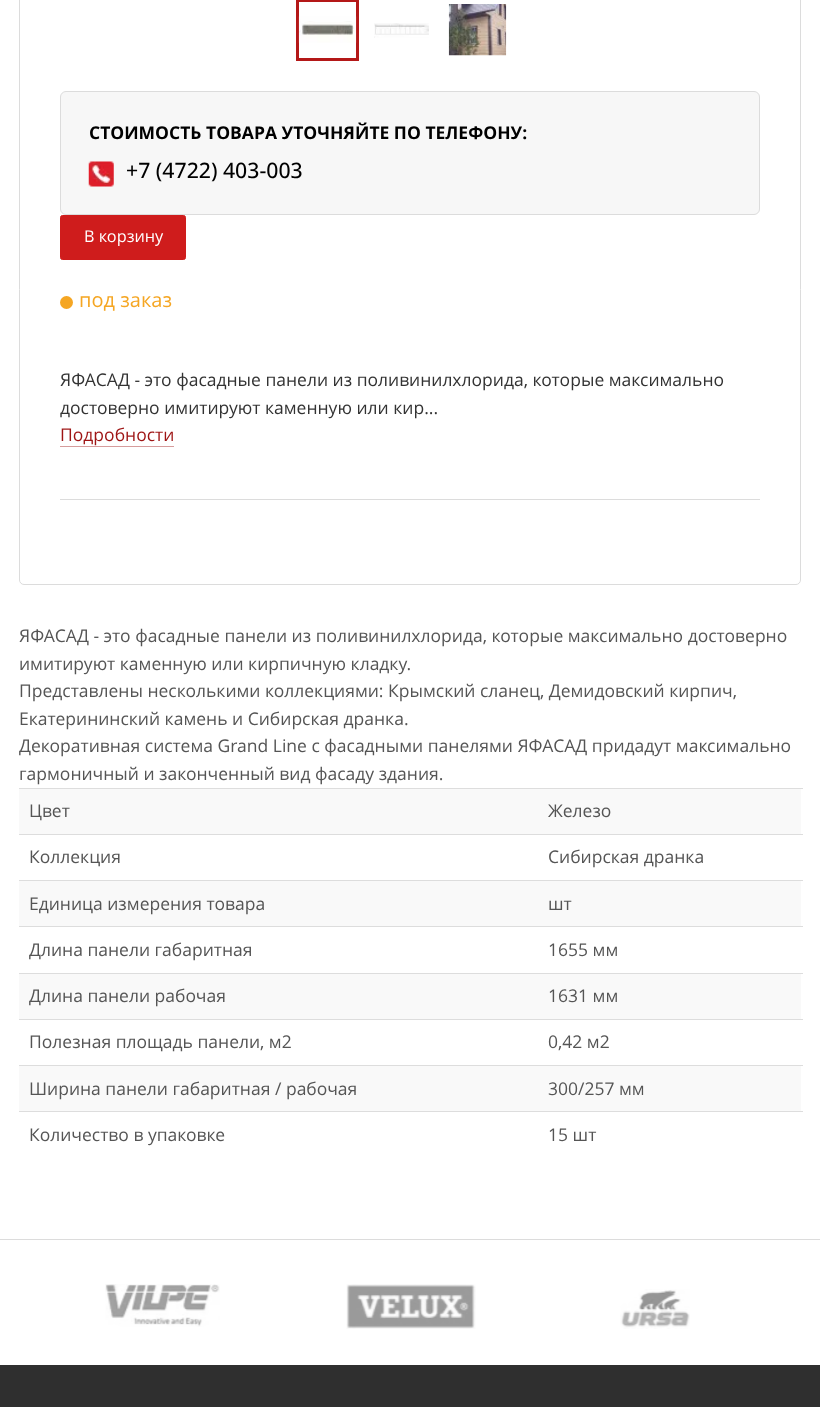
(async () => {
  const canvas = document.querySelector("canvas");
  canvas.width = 820;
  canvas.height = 1407;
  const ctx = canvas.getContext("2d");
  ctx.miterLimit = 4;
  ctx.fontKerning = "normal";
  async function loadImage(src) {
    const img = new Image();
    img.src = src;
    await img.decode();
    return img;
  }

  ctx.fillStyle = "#ffffff";
  ctx.fillRect(0, 0, 820, 1407);
  ctx.beginPath();
  ctx.roundRect(19.5, -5.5, 781, 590, 4.5);
  ctx.strokeStyle = "#dcdcdc";
  ctx.stroke();
  ctx.strokeStyle = "#b41818";
  ctx.lineWidth = 3;
  ctx.strokeRect(297.5, 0.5, 60, 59);
  ctx.drawImage(await loadImage("img/1.png"), 298, 16, 59, 27);
  ctx.drawImage(await loadImage("img/2.png"), 374, 23, 55, 15);
  ctx.drawImage(await loadImage("img/3.png"), 448, 4, 59, 52);
  ctx.fillStyle = "#f7f7f7";
  ctx.beginPath();
  ctx.roundRect(60.5, 91.5, 699, 123, 5.5);
  ctx.fill();
  ctx.strokeStyle = "#dcdcdc";
  ctx.lineWidth = 1;
  ctx.stroke();
  ctx.drawImage(await loadImage("img/4.png"), 88, 161, 26, 26);
  ctx.fillStyle = "#cf1c1c";
  ctx.beginPath();
  ctx.roundRect(60.5, 215.5, 125, 44, 2);
  ctx.fill();
  ctx.strokeStyle = "#cf1c1c";
  ctx.stroke();
  ctx.fillStyle = "#f5a623";
  ctx.beginPath();
  ctx.arc(66.5, 302.5, 6.5, 0, Math.PI * 2);
  ctx.fill();
  for (const [x, y, w, h, color] of [
    [60, 446, 114, 1, "#d69c9c"],
    [60, 499, 700, 1, "#dcdcdc"],
    [19, 789, 782, 45, "#f9f9f9"],
    [19, 788, 784, 1, "#dddddd"],
    [19, 834, 784, 1, "#dddddd"],
    [19, 881, 782, 45, "#f9f9f9"],
    [19, 880, 784, 1, "#dddddd"],
    [19, 926, 784, 1, "#dddddd"],
    [19, 974, 782, 45, "#f9f9f9"],
    [19, 973, 784, 1, "#dddddd"],
    [19, 1019, 784, 1, "#dddddd"],
    [19, 1066, 782, 45, "#f9f9f9"],
    [19, 1065, 784, 1, "#dddddd"],
    [19, 1111, 784, 1, "#dddddd"],
    [0, 1239, 820, 1, "#dcdcdc"],
  ]) {
    ctx.fillStyle = color;
    ctx.fillRect(x, y, w, h);
  }
  ctx.drawImage(await loadImage("img/5.png"), 105, 1284, 115, 43);
  ctx.drawImage(await loadImage("img/6.png"), 346, 1284, 130, 45);
  ctx.drawImage(await loadImage("img/7.png"), 620, 1289, 70, 40);
  ctx.fillStyle = "#2f2f2f";
  ctx.fillRect(0, 1365, 820, 42);
  ctx.font = "bold 17.5px Open Sans";
  ctx.fillStyle = "#000000";
  ctx.fillText("СТОИМОСТЬ ТОВАРА УТОЧНЯЙТЕ ПО ТЕЛЕФОНУ:", 89, 139);
  ctx.font = "500 21.25px Open Sans";
  ctx.fillText("+7 (4722) 403-003", 126, 178);
  ctx.font = "16.25px Open Sans";
  ctx.fillStyle = "#ffffff";
  ctx.fillText("В корзину", 84, 242);
  ctx.font = "20px Open Sans";
  ctx.fillStyle = "#f5a623";
  ctx.fillText("под заказ", 79, 307);
  ctx.font = "17.5px Open Sans";
  ctx.fillStyle = "#333333";
  ctx.fillText("ЯФАСАД - это фасадные панели из поливинилхлорида, которые максимально", 60, 386);
  ctx.fillText("достоверно имитируют каменную или кир...", 60, 414);
  ctx.fillStyle = "#9e1414";
  ctx.fillText("Подробности", 60, 441);
  ctx.fillStyle = "#555555";
  for (const [text, x, y] of [
    ["ЯФАСАД - это фасадные панели из поливинилхлорида, которые максимально достоверно", 19, 642],
    ["имитируют каменную или кирпичную кладку.", 19, 670],
    ["Представлены несколькими коллекциями: Крымский сланец, Демидовский кирпич,", 19, 697],
    ["Екатерининский камень и Сибирская дранка.", 19, 725],
    ["Декоративная система Grand Line с фасадными панелями ЯФАСАД придадут максимально", 19, 752],
    ["гармоничный и законченный вид фасаду здания.", 19, 780],
    ["Цвет", 29, 817],
    ["Железо", 548, 817],
    ["Коллекция", 29, 863],
    ["Сибирская дранка", 548, 863],
    ["Единица измерения товара", 29, 910],
    ["шт", 548, 910],
    ["Длина панели габаритная", 29, 956],
    ["1655 мм", 548, 956],
    ["Длина панели рабочая", 29, 1002],
    ["1631 мм", 548, 1002],
    ["Полезная площадь панели, м2", 29, 1048],
    ["0,42 м2", 548, 1048],
    ["Ширина панели габаритная / рабочая", 29, 1095],
    ["300/257 мм", 548, 1095],
    ["Количество в упаковке", 29, 1141],
    ["15 шт", 548, 1141],
  ]) {
    ctx.fillText(text, x, y);
  }
})();
